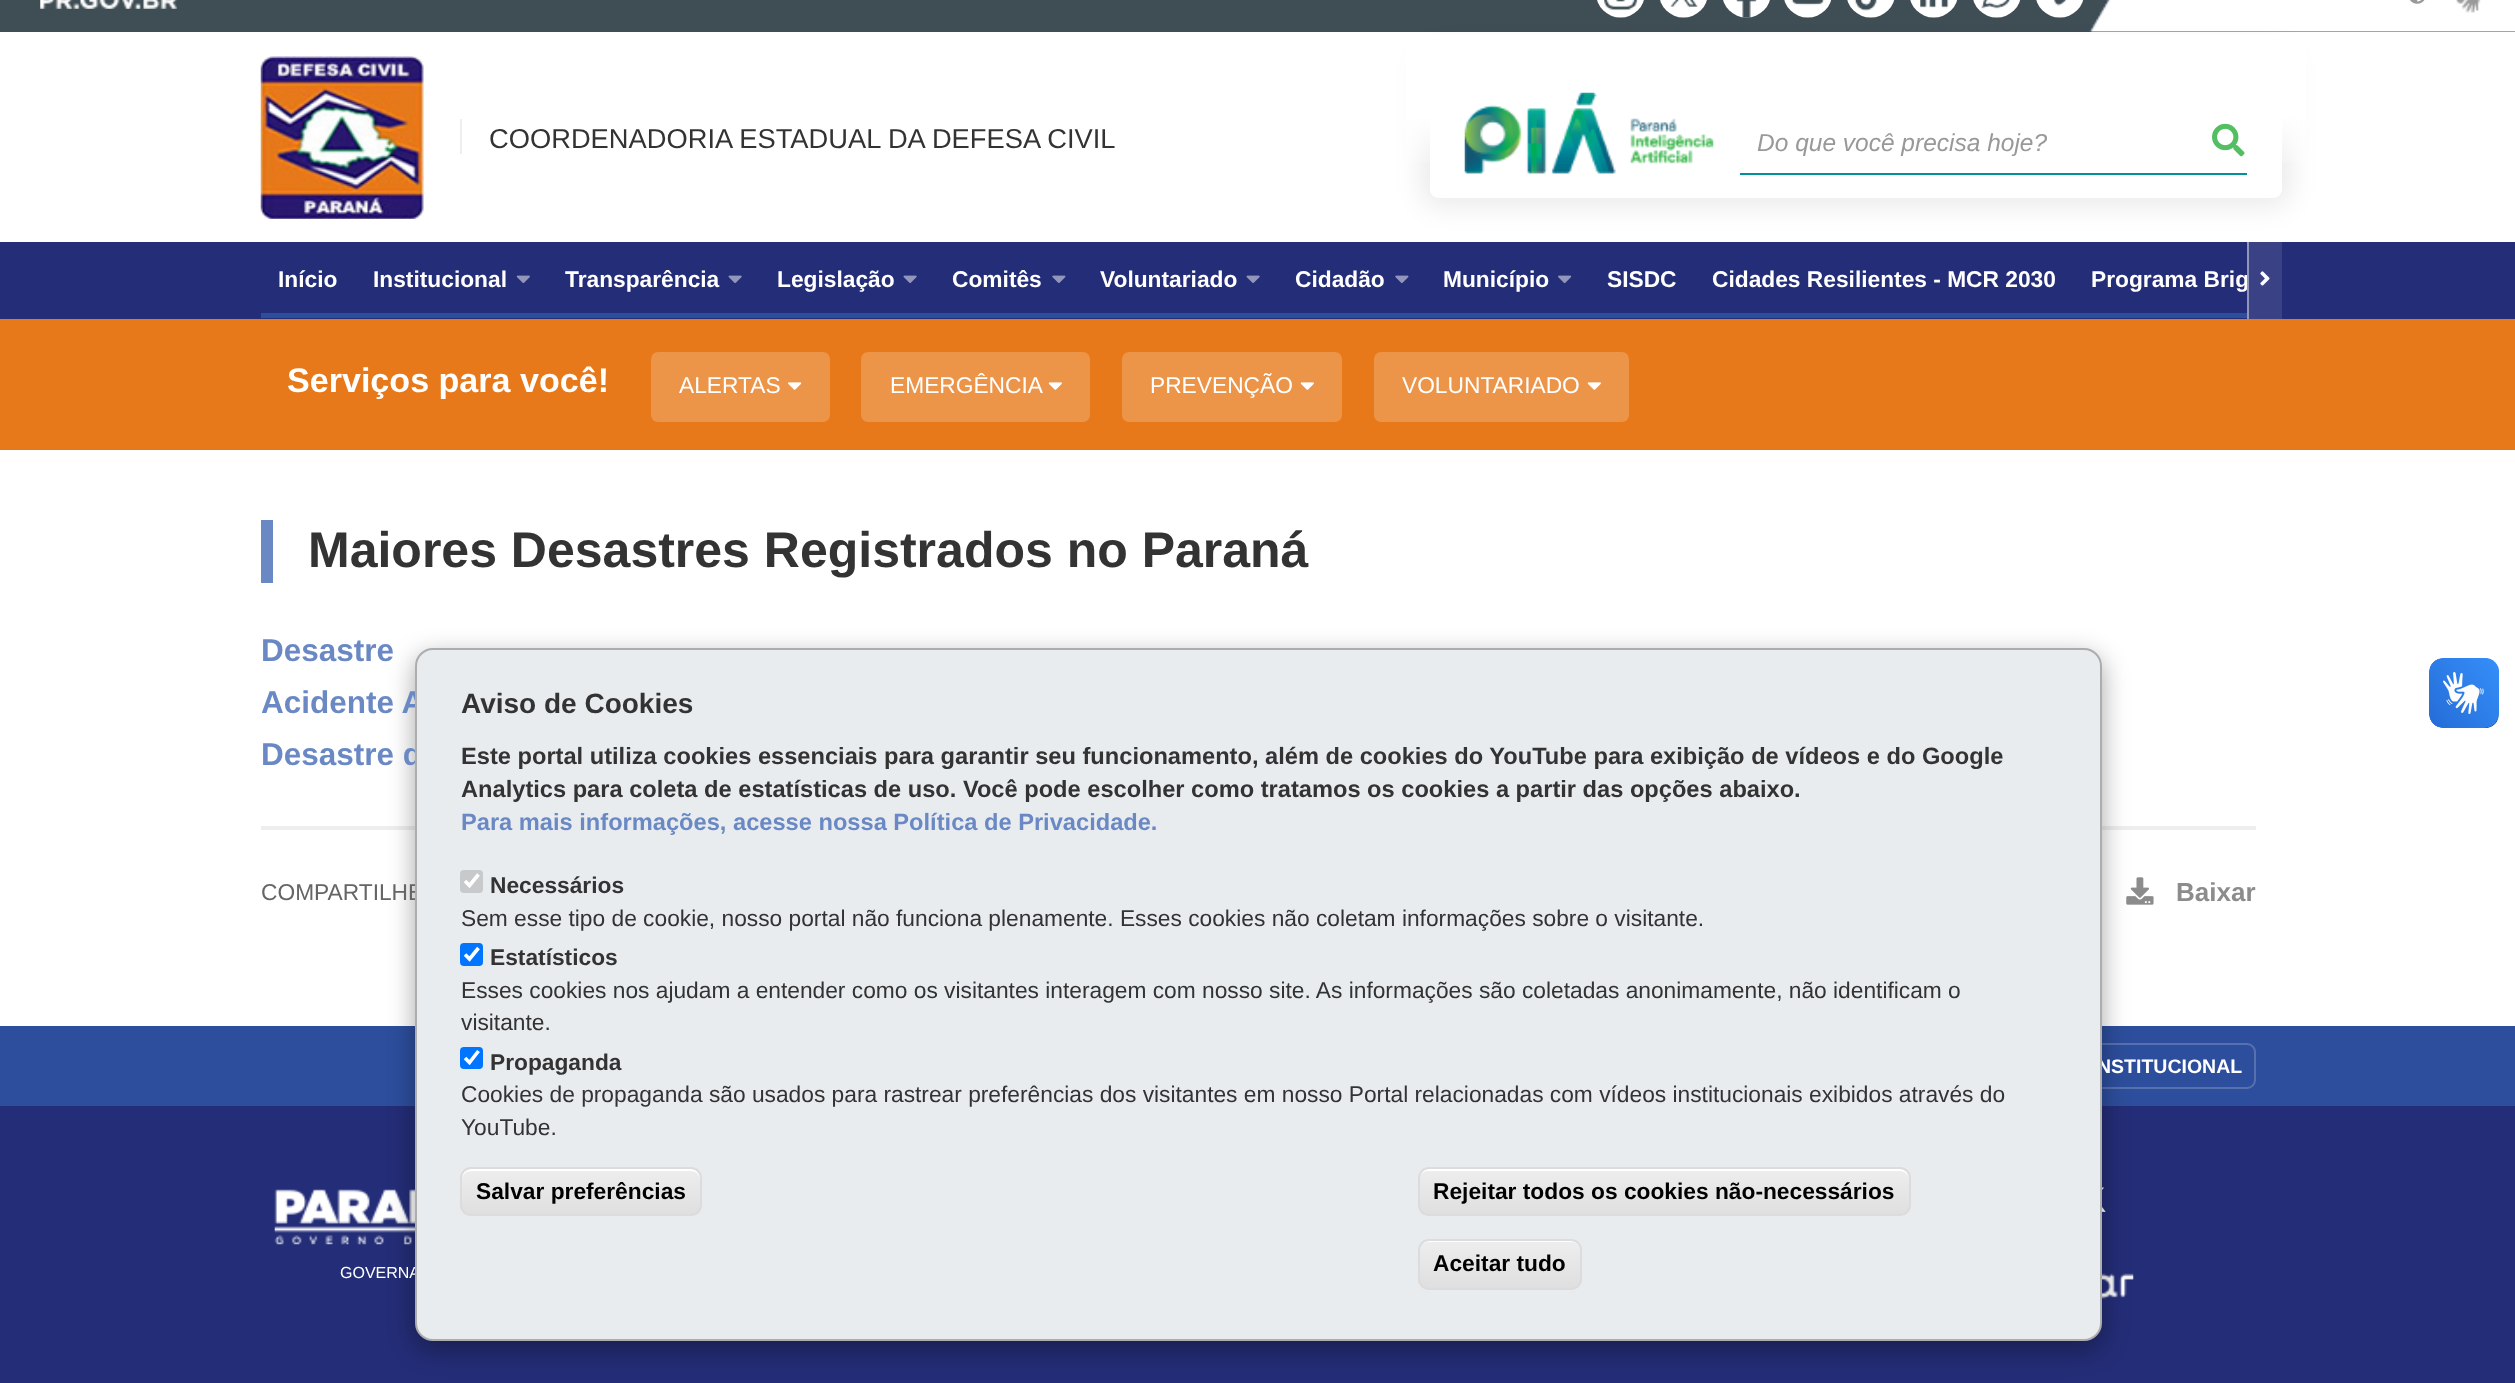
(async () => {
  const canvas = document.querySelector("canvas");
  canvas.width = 2515;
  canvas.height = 1383;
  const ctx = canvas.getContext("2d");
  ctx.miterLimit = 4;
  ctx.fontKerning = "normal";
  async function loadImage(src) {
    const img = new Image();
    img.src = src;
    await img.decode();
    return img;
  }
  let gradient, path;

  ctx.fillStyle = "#242d77";
  ctx.fillRect(0, 0, 2515, 1383);
  ctx.fillStyle = "#3f4e55";
  ctx.fillRect(0, 0, 2515, 32);
  ctx.drawImage(await loadImage("img/1.png"), 2089, 0, 426, 32);
  ctx.drawImage(await loadImage("img/2.png"), 40, 0, 137, 9);
  ctx.drawImage(await loadImage("img/3.png"), 1597, 0, 47, 18);
  ctx.drawImage(await loadImage("img/4.png"), 1660, 0, 47, 18);
  ctx.drawImage(await loadImage("img/5.png"), 1723, 0, 47, 18);
  ctx.drawImage(await loadImage("img/6.png"), 1784, 0, 48, 18);
  ctx.drawImage(await loadImage("img/7.png"), 1847, 0, 48, 18);
  ctx.drawImage(await loadImage("img/8.png"), 1910, 0, 48, 18);
  ctx.drawImage(await loadImage("img/9.png"), 1973, 0, 48, 18);
  ctx.drawImage(await loadImage("img/10.png"), 2036, 0, 48, 18);
  ctx.drawImage(await loadImage("img/11.png"), 2410, 0, 15, 4);
  ctx.drawImage(await loadImage("img/12.png"), 2455, 0, 26, 13);
  ctx.fillStyle = "#ffffff";
  ctx.fillRect(0, 32, 2515, 210);
  ctx.drawImage(await loadImage("img/13.png"), 260, 56, 164, 163);
  ctx.fillStyle = "#eeeeee";
  ctx.fillRect(460, 119, 2, 35);
  ctx.save();
  path = new Path2D("M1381 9H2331V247H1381ZM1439 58H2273C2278 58 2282 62 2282 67V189C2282 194 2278 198 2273 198H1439C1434 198 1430 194 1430 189V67C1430 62 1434 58 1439 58Z");
  ctx.clip(path, "evenodd");
  ctx.fillStyle = "rgba(0, 0, 0, 0.08)";
  ctx.filter = "blur(13px)";
  ctx.beginPath();
  ctx.roundRect(1421, 49, 870, 158, 18);
  ctx.fill();
  ctx.filter = "none";
  ctx.restore();
  gradient = ctx.createLinearGradient(1873, 31, 1873, 172);
  gradient.addColorStop(0, "#ffffff");
  gradient.addColorStop(0.6, "#ffffff");
  gradient.addColorStop(1, "rgba(255, 255, 255, 0)");
  ctx.fillStyle = gradient;
  ctx.fillRect(1406, 34, 900, 128);
  ctx.drawImage(await loadImage("img/14.png"), 1464, 92, 250, 82);
  ctx.fillStyle = "#01919a";
  ctx.fillRect(1740, 173, 507, 2);
  ctx.drawImage(await loadImage("img/15.png"), 2212, 123, 33, 34);
  ctx.fillStyle = "#2d4e9c";
  ctx.fillRect(261, 313, 1986, 5);
  ctx.drawImage(await loadImage("img/16.png"), 516, 275, 14, 9);
  ctx.drawImage(await loadImage("img/17.png"), 728, 275, 14, 8);
  ctx.drawImage(await loadImage("img/17.png"), 903, 275, 14, 8);
  ctx.drawImage(await loadImage("img/18.png"), 1052, 275, 14, 8);
  ctx.drawImage(await loadImage("img/17.png"), 1246, 275, 14, 8);
  ctx.drawImage(await loadImage("img/18.png"), 1395, 275, 14, 8);
  ctx.drawImage(await loadImage("img/19.png"), 1558, 275, 14, 9);
  ctx.fillStyle = "#3a4285";
  ctx.fillRect(2249, 242, 33, 77);
  ctx.drawImage(await loadImage("img/20.png"), 2260, 271, 10, 15);
  ctx.fillStyle = "#e7791a";
  ctx.fillRect(0, 319, 2515, 131);
  ctx.fillStyle = "#ec9448";
  ctx.beginPath();
  ctx.roundRect(651, 352, 179, 70, 7);
  ctx.fill();
  ctx.drawImage(await loadImage("img/21.png"), 788, 382, 14, 8);
  ctx.beginPath();
  ctx.roundRect(861, 352, 229, 70, 7);
  ctx.fill();
  ctx.drawImage(await loadImage("img/22.png"), 1048, 382, 14, 8);
  ctx.beginPath();
  ctx.roundRect(1122, 352, 220, 70, 7);
  ctx.fill();
  ctx.drawImage(await loadImage("img/22.png"), 1300, 382, 14, 8);
  ctx.beginPath();
  ctx.roundRect(1374, 352, 255, 70, 7);
  ctx.fill();
  ctx.drawImage(await loadImage("img/22.png"), 1587, 382, 14, 8);
  for (const [x, y, w, h, color] of [
    [0, 450, 2515, 576, "#ffffff"],
    [261, 520, 12, 63, "#6a89c4"],
    [261, 826, 1995, 4, "#eeeeee"],
  ]) {
    ctx.fillStyle = color;
    ctx.fillRect(x, y, w, h);
  }
  ctx.drawImage(await loadImage("img/23.png"), 2126, 877, 28, 28);
  ctx.drawImage(await loadImage("img/24.png"), 2429, 658, 70, 70);
  ctx.drawImage(await loadImage("img/25.png"), 2429, 658, 70, 70);
  ctx.fillStyle = "#2d4e9c";
  ctx.fillRect(0, 1026, 2515, 80);
  ctx.beginPath();
  ctx.roundRect(1877, 1044, 378, 44, 8);
  ctx.strokeStyle = "#5771b0";
  ctx.lineWidth = 2;
  ctx.stroke();
  ctx.drawImage(await loadImage("img/26.png"), 274, 1189, 141, 56);
  ctx.drawImage(await loadImage("img/27.png"), 2102, 1187, 4, 25);
  ctx.drawImage(await loadImage("img/28.png"), 2102, 1273, 32, 26);
  ctx.fillStyle = "rgba(0, 0, 0, 0.35)";
  ctx.filter = "blur(13px)";
  ctx.beginPath();
  ctx.roundRect(415, 656, 1687, 693, 18);
  ctx.fill();
  ctx.filter = "none";
  ctx.font = "27.3px Liberation Sans";
  ctx.fillStyle = "#333333";
  ctx.fillText("COORDENADORIA ESTADUAL DA DEFESA CIVIL", 489, 148);
  ctx.save();
  ctx.beginPath();
  ctx.rect(1757, 128, 403, 28);
  ctx.clip();
  ctx.font = "italic 24.5px Liberation Sans";
  ctx.fillStyle = "#999999";
  ctx.fillText("Do que você precisa hoje?", 1757, 151);
  ctx.restore();
  ctx.font = "bold 22.75px Liberation Sans";
  ctx.fillStyle = "#ffffff";
  for (const [text, x, y] of [
    ["Início", 278, 287],
    ["Institucional", 373, 287],
    ["Transparência", 565, 287],
    ["Legislação", 777, 287],
    ["Comitês", 952, 287],
    ["Voluntariado", 1100, 287],
    ["Cidadão", 1295, 287],
    ["Município", 1443, 287],
    ["SISDC", 1607, 287],
    ["Cidades Resilientes - MCR 2030", 1712, 287],
    ["Programa Brig", 2091, 287],
  ]) {
    ctx.fillText(text, x, y);
  }
  ctx.fillStyle = "#9196bb";
  ctx.fillRect(2247, 242, 2, 77);
  ctx.font = "bold 34.1px Liberation Sans";
  ctx.fillStyle = "#ffffff";
  ctx.fillText("Serviços para você!", 287, 392);
  ctx.font = "22.75px Liberation Sans";
  for (const [text, x, y] of [
    ["ALERTAS", 679, 393],
    ["EMERGÊNCIA", 890, 393],
    ["PREVENÇÃO", 1150, 393],
    ["VOLUNTARIADO", 1402, 393],
  ]) {
    ctx.fillText(text, x, y);
  }
  ctx.font = "bold 50px Liberation Sans";
  ctx.fillStyle = "#333333";
  ctx.fillText("Maiores Desastres Registrados no Paraná", 308, 567);
  ctx.font = "bold 31.5px Liberation Sans";
  ctx.fillStyle = "#6a89c4";
  for (const [text, x, y] of [
    ["Desastre", 261, 661],
    ["Acidente A", 261, 713],
    ["Desastre d", 261, 765],
  ]) {
    ctx.fillText(text, x, y);
  }
  ctx.font = "22.75px Liberation Sans";
  ctx.fillStyle = "#656565";
  ctx.fillText("COMPARTILHE", 261, 900);
  ctx.font = "bold 26px Liberation Sans";
  ctx.fillStyle = "#8c8c8c";
  ctx.fillText("Baixar", 2176, 901);
  ctx.font = "bold 19.5px Liberation Sans";
  ctx.fillStyle = "#ffffff";
  ctx.fillText("NSTITUCIONAL", 2097, 1073);
  ctx.font = "16px Liberation Sans";
  ctx.fillText("GOVERNA", 340, 1278);
  ctx.fillStyle = "#e9ecef";
  ctx.beginPath();
  ctx.roundRect(416, 649, 1685, 691, 17);
  ctx.fill();
  ctx.strokeStyle = "#adadad";
  ctx.stroke();
  ctx.font = "bold 28px Liberation Sans";
  ctx.fillStyle = "#333333";
  ctx.fillText("Aviso de Cookies", 461, 713);
  ctx.font = "bold 23.65px Liberation Sans";
  ctx.fillText("Este portal utiliza cookies essenciais para garantir seu funcionamento, além de cookies do YouTube para exibição de vídeos e do Google", 461, 764);
  ctx.fillText("Analytics para coleta de estatísticas de uso. Você pode escolher como tratamos os cookies a partir das opções abaixo.", 461, 797);
  ctx.fillStyle = "#6a89c4";
  ctx.fillText("Para mais informações, acesse nossa Política de Privacidade.", 461, 830);
  ctx.fillStyle = "#c7c9cb";
  ctx.beginPath();
  ctx.roundRect(460, 870, 23, 23, 4);
  ctx.fill();
  path = new Path2D("M465 881L469.5 885.5L478.5 874.5");
  ctx.strokeStyle = "#ffffff";
  ctx.lineWidth = 3.6;
  ctx.stroke(path);
  ctx.font = "bold 22.75px Liberation Sans";
  ctx.fillStyle = "#333333";
  ctx.fillText("Necessários", 490, 893);
  ctx.font = "22.75px Liberation Sans";
  ctx.fillText("Sem esse tipo de cookie, nosso portal não funciona plenamente. Esses cookies não coletam informações sobre o visitante.", 461, 926);
  ctx.fillStyle = "#0075ff";
  ctx.beginPath();
  ctx.roundRect(460, 943, 23, 23, 4);
  ctx.fill();
  path = new Path2D("M465 954.5L469.5 959L478.5 948");
  ctx.stroke(path);
  ctx.font = "bold 22.75px Liberation Sans";
  ctx.fillStyle = "#333333";
  ctx.fillText("Estatísticos", 490, 965);
  ctx.font = "22.75px Liberation Sans";
  ctx.fillText("Esses cookies nos ajudam a entender como os visitantes interagem com nosso site. As informações são coletadas anonimamente, não identificam o", 461, 998);
  ctx.fillText("visitante.", 461, 1030);
  ctx.fillStyle = "#0075ff";
  ctx.beginPath();
  ctx.roundRect(460, 1047, 23, 22, 4);
  ctx.fill();
  path = new Path2D("M465 1058L469.5 1062.5L478.5 1051");
  ctx.stroke(path);
  ctx.font = "bold 22.75px Liberation Sans";
  ctx.fillStyle = "#333333";
  ctx.fillText("Propaganda", 490, 1070);
  ctx.font = "22.75px Liberation Sans";
  ctx.fillText("Cookies de propaganda são usados para rastrear preferências dos visitantes em nosso Portal relacionadas com vídeos institucionais exibidos através do", 461, 1102);
  ctx.fillText("YouTube.", 461, 1135);
  ctx.save();
  ctx.beginPath();
  ctx.roundRect(460, 1167, 242, 49, 11);
  ctx.clip();
  gradient = ctx.createLinearGradient(581, 1169, 581, 1215);
  gradient.addColorStop(0.05, "#ededed");
  gradient.addColorStop(1, "#dfdfdf");
  ctx.fillStyle = gradient;
  ctx.fillRect(460, 1169, 242, 46);
  ctx.restore();
  ctx.fillStyle = "#ffffff";
  path = new Path2D("M471 1171H691C696 1171 700 1175 700 1180V1178C700 1173 696 1169 691 1169H471C466 1169 462 1173 462 1178V1180C462 1175 466 1171 471 1171Z");
  ctx.fill(path);
  ctx.beginPath();
  ctx.roundRect(461, 1168, 240, 47, 10);
  ctx.strokeStyle = "#dcdcdc";
  ctx.lineWidth = 2;
  ctx.stroke();
  ctx.font = "bold 22.75px Liberation Sans";
  ctx.fillStyle = "#000000";
  ctx.fillText("Salvar preferências", 476, 1199);
  ctx.save();
  ctx.beginPath();
  ctx.roundRect(1418, 1167, 493, 49, 11);
  ctx.clip();
  gradient = ctx.createLinearGradient(1664, 1169, 1664, 1215);
  gradient.addColorStop(0.05, "#ededed");
  gradient.addColorStop(1, "#dfdfdf");
  ctx.fillStyle = gradient;
  ctx.fillRect(1418, 1169, 493, 46);
  ctx.restore();
  ctx.fillStyle = "#ffffff";
  path = new Path2D("M1428 1171H1900C1905 1171 1909 1175 1909 1180C1909 1174 1906 1169 1900 1169H1428C1422 1169 1419 1174 1419 1180C1419 1175 1423 1171 1428 1171Z");
  ctx.fill(path);
  ctx.beginPath();
  ctx.roundRect(1419, 1168, 491, 47, 10);
  ctx.stroke();
  ctx.fillStyle = "#000000";
  ctx.fillText("Rejeitar todos os cookies não-necessários", 1433, 1199);
  ctx.save();
  ctx.beginPath();
  ctx.roundRect(1418, 1239, 164, 51, 11);
  ctx.clip();
  gradient = ctx.createLinearGradient(1500, 1241, 1500, 1288);
  gradient.addColorStop(0.05, "#ededed");
  gradient.addColorStop(1, "#dfdfdf");
  ctx.fillStyle = gradient;
  ctx.fillRect(1418, 1241, 164, 47);
  ctx.restore();
  ctx.fillStyle = "#ffffff";
  path = new Path2D("M1428 1242H1572C1576 1242 1580 1246 1580 1251V1250C1580 1245 1576 1241 1571 1241H1428C1423 1241 1419 1245 1419 1250V1251C1419 1246 1423 1242 1428 1242Z");
  ctx.fill(path);
  ctx.beginPath();
  ctx.roundRect(1419, 1240, 162, 49, 10);
  ctx.stroke();
  ctx.fillStyle = "#000000";
  ctx.fillText("Aceitar tudo", 1433, 1271);
})();
